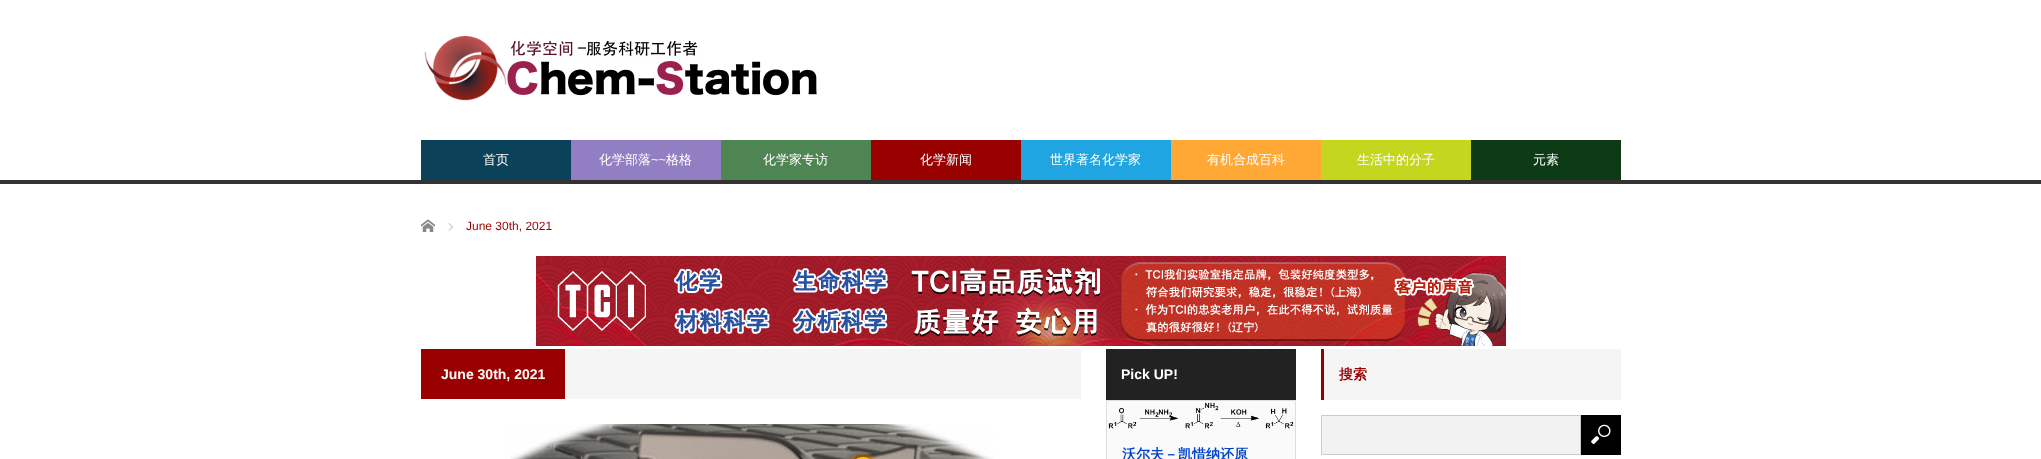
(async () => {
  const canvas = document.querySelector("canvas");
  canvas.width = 2041;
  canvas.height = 459;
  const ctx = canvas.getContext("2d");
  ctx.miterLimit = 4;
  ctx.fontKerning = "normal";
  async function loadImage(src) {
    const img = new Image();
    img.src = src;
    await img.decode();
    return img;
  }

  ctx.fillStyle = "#ffffff";
  ctx.fillRect(0, 0, 2041, 459);
  ctx.fillStyle = "#333333";
  ctx.fillRect(0, 180, 2041, 4);
  ctx.drawImage(await loadImage("img/1.png"), 424, 36, 393, 65);
  for (const [x, y, w, h, color] of [
    [421, 140, 150, 40, "#0c4259"],
    [571, 140, 150, 40, "#927ec2"],
    [721, 140, 150, 40, "#4e8552"],
    [871, 140, 150, 40, "#990000"],
    [1021, 140, 150, 40, "#1fa6e2"],
    [1171, 140, 150, 40, "#ffa836"],
    [1321, 140, 150, 40, "#c4d61e"],
    [1471, 140, 150, 40, "#0d3b16"],
  ]) {
    ctx.fillStyle = color;
    ctx.fillRect(x, y, w, h);
  }
  ctx.drawImage(await loadImage("img/2.png"), 421, 219, 14, 13);
  ctx.drawImage(await loadImage("img/3.png"), 448, 223, 5, 8);
  ctx.drawImage(await loadImage("img/4.png"), 536, 256, 970, 90);
  ctx.fillStyle = "#f5f5f5";
  ctx.fillRect(565, 349, 516, 50);
  ctx.fillStyle = "#990000";
  ctx.fillRect(421, 349, 144, 50);
  ctx.drawImage(await loadImage("img/5.png"), 510, 424, 483, 35);
  ctx.fillStyle = "#222222";
  ctx.fillRect(1106, 349, 190, 51);
  ctx.fillStyle = "#fafafa";
  ctx.beginPath();
  ctx.rect(1106.5, 400.5, 189, 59);
  ctx.fill();
  ctx.strokeStyle = "#dddddd";
  ctx.stroke();
  ctx.drawImage(await loadImage("img/6.png"), 1108, 402, 186, 27);
  ctx.fillStyle = "#f5f5f5";
  ctx.fillRect(1324, 349, 297, 51);
  ctx.fillStyle = "#990000";
  ctx.fillRect(1321, 349, 3, 51);
  ctx.fillStyle = "#f2f2f2";
  ctx.beginPath();
  ctx.rect(1321.5, 415.5, 259, 39);
  ctx.fill();
  ctx.strokeStyle = "#cccccc";
  ctx.stroke();
  ctx.fillStyle = "#000000";
  ctx.fillRect(1581, 415, 40, 40);
  ctx.drawImage(await loadImage("img/7.png"), 1591, 424, 20, 20);
  ctx.font = "500 13px WenQuanYi Zen Hei";
  ctx.fillStyle = "#ffffff";
  ctx.fillText("首页", 483, 164);
  ctx.fillText("化学部落", 599, 164);
  ctx.font = "13px Liberation Sans";
  ctx.fillText("~~", 651, 164);
  ctx.font = "500 13px WenQuanYi Zen Hei";
  for (const [text, x, y] of [
    ["格格", 666, 164],
    ["化学家专访", 763, 164],
    ["化学新闻", 920, 164],
    ["世界著名化学家", 1050, 164],
    ["有机合成百科", 1207, 164],
    ["生活中的分子", 1357, 164],
    ["元素", 1533, 164],
  ]) {
    ctx.fillText(text, x, y);
  }
  ctx.font = "12px Liberation Sans";
  ctx.fillStyle = "#990000";
  ctx.fillText("June 30th, 2021", 466, 230);
  ctx.font = "bold 14px Liberation Sans";
  ctx.fillStyle = "#ffffff";
  ctx.fillText("June 30th, 2021", 441, 379);
  ctx.fillText("Pick UP!", 1121, 379);
  ctx.font = "bold 14px WenQuanYi Zen Hei";
  ctx.fillStyle = "#0044cc";
  ctx.fillText("沃尔夫－凯惜纳还原", 1122, 459);
  ctx.fillStyle = "#990000";
  ctx.fillText("搜索", 1339, 379);
})();
